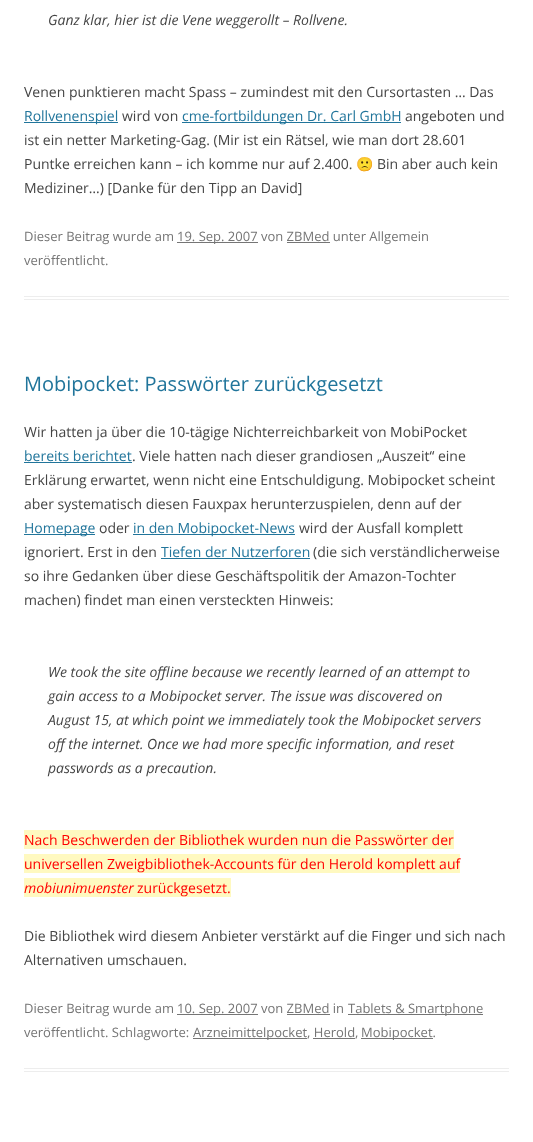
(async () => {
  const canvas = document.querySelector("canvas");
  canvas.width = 533;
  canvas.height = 1142;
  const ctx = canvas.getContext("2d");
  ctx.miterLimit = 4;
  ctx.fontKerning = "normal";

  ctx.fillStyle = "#ffffff";
  ctx.fillRect(0, 0, 533, 1142);
  for (const [x, y, w, h, color] of [
    [24, 296, 485, 1, "#ededed"],
    [24, 299, 485, 1, "#ededed"],
    [24, 122, 94, 1, "#21759b"],
    [182, 122, 219, 1, "#21759b"],
    [177, 242, 81, 1, "#757575"],
    [287, 242, 43, 1, "#757575"],
    [24, 1068, 485, 1, "#ededed"],
    [24, 1071, 485, 1, "#ededed"],
    [24, 462, 108, 1, "#21759b"],
    [24, 534, 71, 1, "#21759b"],
    [133, 534, 162, 1, "#21759b"],
    [161, 558, 149, 1, "#21759b"],
    [24, 830, 430, 19, "#fff9c0"],
    [24, 854, 436, 19, "#fff9c0"],
    [24, 878, 207, 19, "#fff9c0"],
    [177, 1014, 81, 1, "#757575"],
    [348, 1014, 135, 1, "#757575"],
    [287, 1014, 43, 1, "#757575"],
    [193, 1038, 114, 1, "#757575"],
    [361, 1038, 72, 1, "#757575"],
    [313, 1038, 42, 1, "#757575"],
  ]) {
    ctx.fillStyle = color;
    ctx.fillRect(x, y, w, h);
  }
  ctx.font = "italic 14px Open Sans";
  ctx.fillStyle = "#444444";
  ctx.fillText("Ganz klar, hier ist die Vene weggerollt – Rollvene.", 48, 25);
  ctx.font = "14px Open Sans";
  ctx.fillText("Venen punktieren macht Spass – zumindest mit den Cursortasten … Das", 24, 97);
  ctx.fillStyle = "#21759b";
  ctx.fillText("Rollvenenspiel", 24, 121);
  ctx.fillStyle = "#444444";
  ctx.fillText("wird von", 122, 121);
  ctx.fillStyle = "#21759b";
  ctx.fillText("cme-fortbildungen Dr. Carl GmbH", 182, 121);
  ctx.fillStyle = "#444444";
  for (const [text, x, y] of [
    ["angeboten und", 405, 121],
    ["ist ein netter Marketing-Gag. (Mir ist ein Rätsel, wie man dort 28.601", 24, 145],
    ["Puntke erreichen kann – ich komme nur auf 2.400.", 24, 169],
  ]) {
    ctx.fillText(text, x, y);
  }
  ctx.font = "14px Noto Color Emoji";
  ctx.fillText("🙁", 356, 169);
  ctx.font = "14px Open Sans";
  ctx.fillText("Bin aber auch kein", 377, 169);
  ctx.fillText("Mediziner…) [Danke für den Tipp an David]", 24, 193);
  ctx.font = "13px Open Sans";
  ctx.fillStyle = "#757575";
  for (const [text, x, y] of [
    ["Dieser Beitrag wurde am", 24, 241],
    ["19. Sep. 2007 von ZBMed unter Allgemein", 177, 241],
    ["veröffentlicht.", 24, 265],
  ]) {
    ctx.fillText(text, x, y);
  }
  ctx.font = "20px Open Sans";
  ctx.fillStyle = "#21759b";
  ctx.fillText("Mobipocket: Passwörter zurückgesetzt", 24, 391);
  ctx.font = "14px Open Sans";
  ctx.fillStyle = "#444444";
  ctx.fillText("Wir hatten ja über die 10-tägige Nichterreichbarkeit von MobiPocket", 24, 437);
  ctx.fillStyle = "#21759b";
  ctx.fillText("bereits berichtet", 24, 461);
  ctx.fillStyle = "#444444";
  for (const [text, x, y] of [
    [". Viele hatten nach dieser grandiosen „Auszeit“ eine", 132, 461],
    ["Erklärung erwartet, wenn nicht eine Entschuldigung. Mobipocket scheint", 24, 485],
    ["aber systematisch diesen Fauxpax herunterzuspielen, denn auf der", 24, 509],
  ]) {
    ctx.fillText(text, x, y);
  }
  ctx.fillStyle = "#21759b";
  ctx.fillText("Homepage", 24, 533);
  ctx.fillStyle = "#444444";
  ctx.fillText("oder", 99, 533);
  ctx.fillStyle = "#21759b";
  ctx.fillText("in den Mobipocket-News", 133, 533);
  ctx.fillStyle = "#444444";
  ctx.fillText("wird der Ausfall komplett", 299, 533);
  ctx.fillText("ignoriert. Erst in den", 24, 557);
  ctx.fillStyle = "#21759b";
  ctx.fillText("Tiefen der Nutzerforen", 161, 557);
  ctx.fillStyle = "#444444";
  for (const [text, x, y] of [
    ["(die sich verständlicherweise", 313, 557],
    ["so ihre Gedanken über diese Geschäftspolitik der Amazon-Tochter", 24, 581],
    ["machen) findet man einen versteckten Hinweis:", 24, 605],
  ]) {
    ctx.fillText(text, x, y);
  }
  ctx.font = "italic 14px Open Sans";
  for (const [text, x, y] of [
    ["We took the site offline because we recently learned of an attempt to", 48, 677],
    ["gain access to a Mobipocket server. The issue was discovered on", 48, 701],
    ["August 15, at which point we immediately took the Mobipocket servers", 48, 725],
    ["off the internet. Once we had more specific information, and reset", 48, 749],
    ["passwords as a precaution.", 48, 773],
  ]) {
    ctx.fillText(text, x, y);
  }
  ctx.font = "14px Open Sans";
  ctx.fillStyle = "#ff0000";
  ctx.fillText("Nach Beschwerden der Bibliothek wurden nun die Passwörter der", 24, 845);
  ctx.fillText("universellen Zweigbibliothek-Accounts für den Herold komplett auf", 24, 869);
  ctx.font = "italic 14px Open Sans";
  ctx.fillText("mobiunimuenster", 24, 893);
  ctx.font = "14px Open Sans";
  ctx.fillText("zurückgesetzt.", 137, 893);
  ctx.fillStyle = "#444444";
  ctx.fillText("Die Bibliothek wird diesem Anbieter verstärkt auf die Finger und sich nach", 24, 941);
  ctx.fillText("Alternativen umschauen.", 24, 965);
  ctx.font = "13px Open Sans";
  ctx.fillStyle = "#757575";
  for (const [text, x, y] of [
    ["Dieser Beitrag wurde am", 24, 1013],
    ["10. Sep. 2007 von ZBMed in", 177, 1013],
    ["Tablets & Smartphone", 348, 1013],
    ["veröffentlicht. Schlagworte:", 24, 1037],
    ["Arzneimittelpocket, Herold,", 193, 1037],
    ["Mobipocket.", 361, 1037],
  ]) {
    ctx.fillText(text, x, y);
  }
})();
